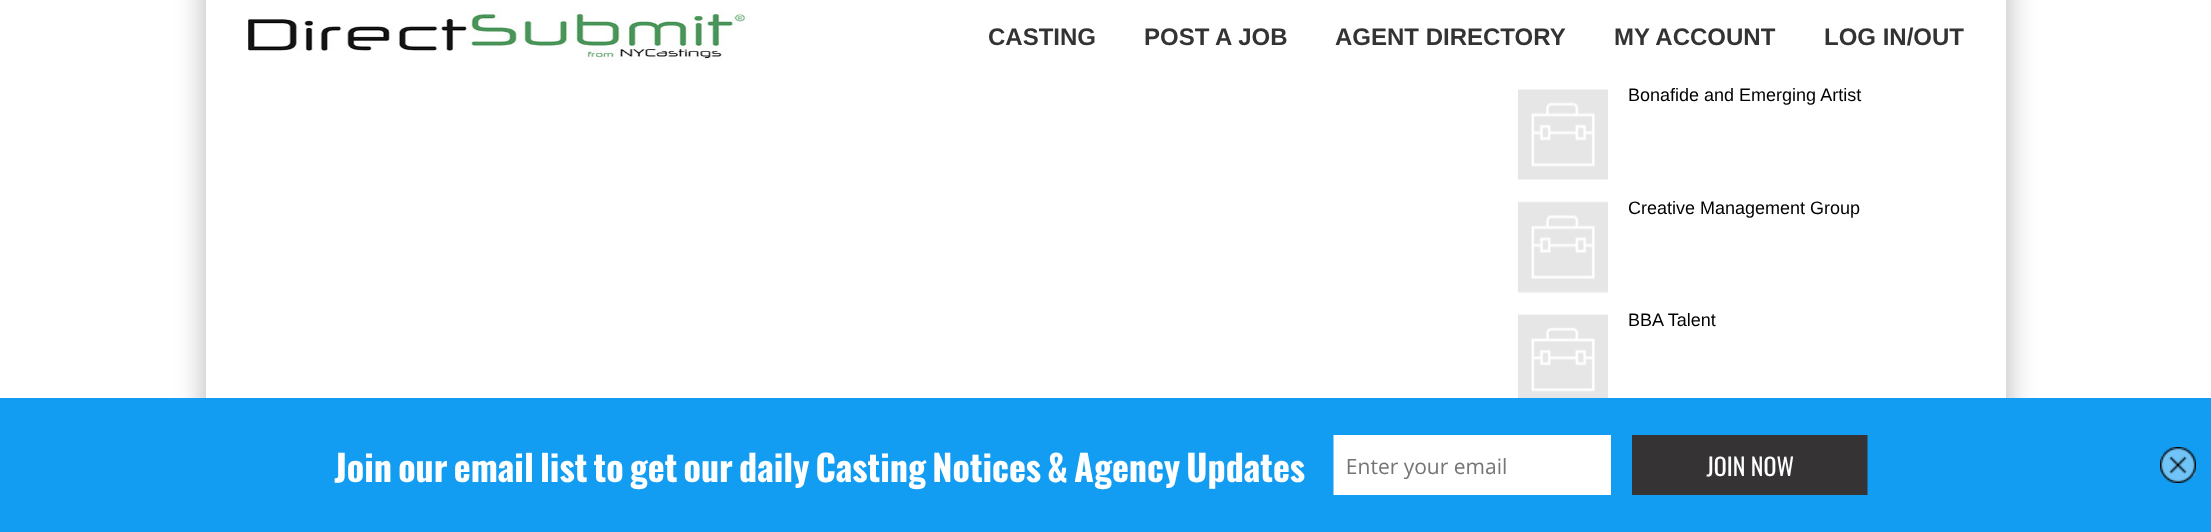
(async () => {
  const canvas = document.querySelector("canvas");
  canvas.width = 2211;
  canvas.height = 532;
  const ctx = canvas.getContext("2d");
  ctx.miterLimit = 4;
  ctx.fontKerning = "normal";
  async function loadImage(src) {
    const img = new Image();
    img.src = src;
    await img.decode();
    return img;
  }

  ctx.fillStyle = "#ffffff";
  ctx.fillRect(0, 0, 2211, 532);
  ctx.fillStyle = "rgba(0, 0, 0, 0.3)";
  ctx.filter = "blur(15px)";
  ctx.beginPath();
  ctx.rect(206, -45, 1800, 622);
  ctx.fill();
  ctx.filter = "none";
  ctx.fillStyle = "#ffffff";
  ctx.fillRect(206, 0, 1800, 398);
  ctx.drawImage(await loadImage("img/1.png"), 248, 10, 502, 51);
  ctx.drawImage(await loadImage("img/2.png"), 1518, 89, 90, 91);
  ctx.drawImage(await loadImage("img/3.png"), 1518, 201, 90, 92);
  ctx.drawImage(await loadImage("img/4.png"), 1518, 314, 90, 84);
  ctx.drawImage(await loadImage("img/5.png"), 0, 398, 2211, 134);
  ctx.font = "bold 24px Liberation Sans";
  ctx.fillStyle = "#333333";
  for (const [text, x, y] of [
    ["CASTING", 988, 45],
    ["POST A JOB", 1144, 45],
    ["AGENT DIRECTORY", 1335, 45],
    ["MY ACCOUNT", 1614, 45],
    ["LOG IN/OUT", 1824, 45],
  ]) {
    ctx.fillText(text, x, y);
  }
  ctx.font = "18px Liberation Sans";
  ctx.fillStyle = "#000000";
  for (const [text, x, y] of [
    ["Bonafide and Emerging Artist", 1628, 101],
    ["Creative Management Group", 1628, 214],
    ["BBA Talent", 1628, 326],
  ]) {
    ctx.fillText(text, x, y);
  }
})();
